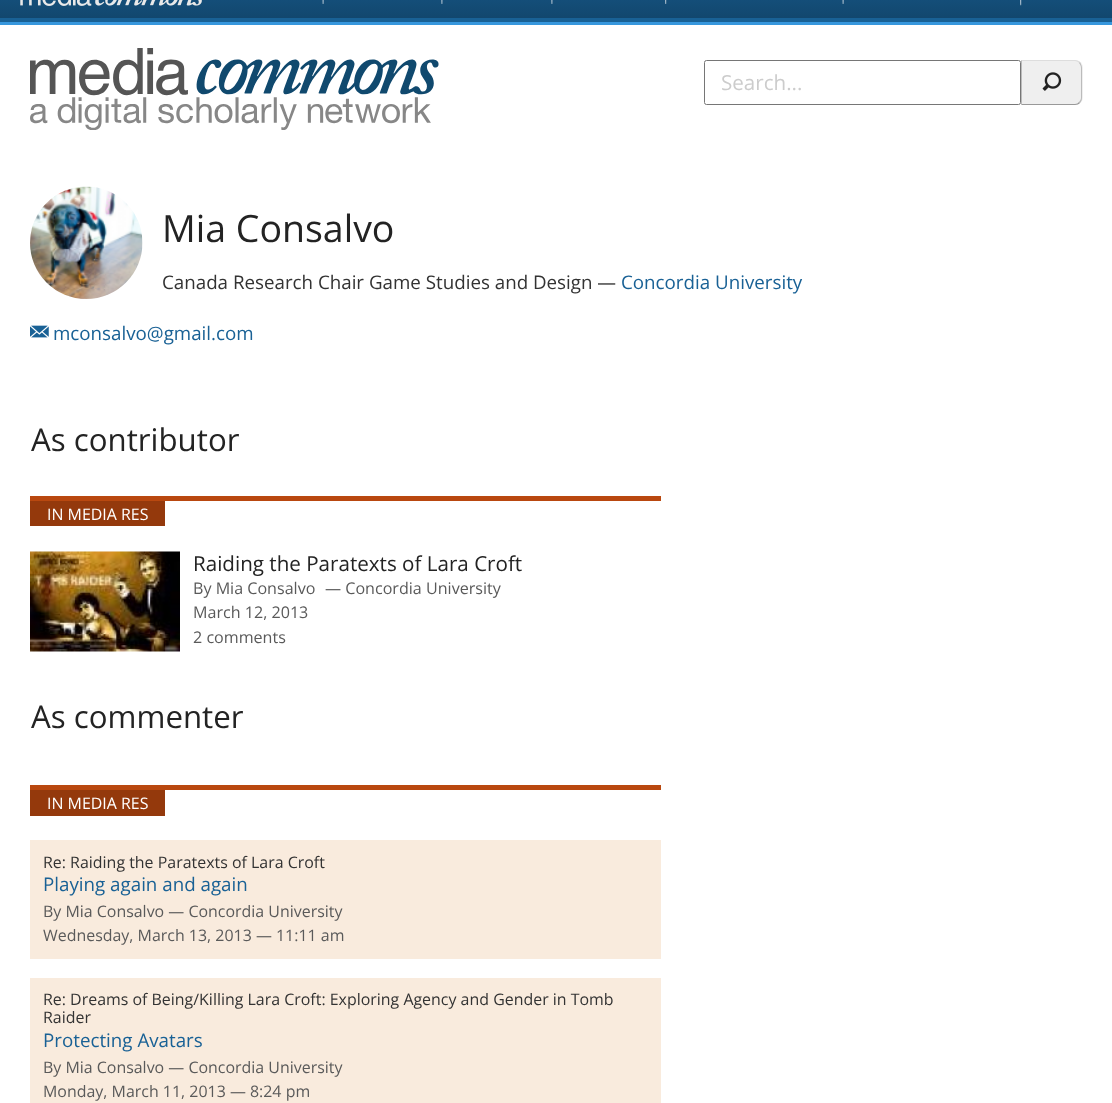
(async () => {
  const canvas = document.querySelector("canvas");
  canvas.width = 1112;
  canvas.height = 1103;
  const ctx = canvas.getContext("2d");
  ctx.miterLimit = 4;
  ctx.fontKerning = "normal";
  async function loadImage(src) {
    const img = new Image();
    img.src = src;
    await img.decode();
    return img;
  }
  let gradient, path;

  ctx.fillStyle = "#ffffff";
  ctx.fillRect(0, 0, 1112, 1103);
  ctx.fillStyle = "#3797dd";
  path = new Path2D("M0 21V25H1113V-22H1112V21Z");
  ctx.fill(path);
  gradient = ctx.createLinearGradient(556, -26, 556, 18);
  gradient.addColorStop(0, "#175888");
  gradient.addColorStop(1, "#12476e");
  ctx.fillStyle = gradient;
  ctx.fillRect(0, 0, 1112, 18);
  ctx.fillStyle = "#196195";
  ctx.fillRect(0, 18, 1112, 4);
  ctx.drawImage(await loadImage("img/1.png"), 20, 0, 182, 6);
  ctx.drawImage(await loadImage("img/2.png"), 322, 0, 2, 4);
  ctx.drawImage(await loadImage("img/3.png"), 441, 0, 2, 4);
  ctx.drawImage(await loadImage("img/3.png"), 551, 0, 2, 4);
  ctx.drawImage(await loadImage("img/4.png"), 665, 0, 2, 4);
  ctx.drawImage(await loadImage("img/2.png"), 842, 0, 2, 4);
  ctx.drawImage(await loadImage("img/5.png"), 1020, 0, 2, 6);
  ctx.drawImage(await loadImage("img/6.png"), 30, 48, 409, 82);
  ctx.beginPath();
  ctx.roundRect(704.5, 60.5, 316, 44, 2);
  ctx.strokeStyle = "#767676";
  ctx.stroke();
  ctx.fillStyle = "#efefef";
  ctx.beginPath();
  ctx.roundRect(1021, 60, 62, 45, [0, 8, 8, 0]);
  ctx.fill();
  ctx.fillStyle = "#dddddd";
  path = new Path2D("M1021 60L1022 61H1075C1077 61 1078 62 1079 63L1080 62C1079 61 1077 60 1075 60Z");
  ctx.fill(path);
  ctx.fillStyle = "#bbbbbb";
  path = new Path2D("M1080 62C1081 64 1082 66 1082 68V98C1082 100 1081 102 1080 103L1079 102C1080 101 1081 99 1081 98V68C1081 66 1080 64 1079 63Z");
  ctx.fill(path);
  ctx.fillStyle = "#999999";
  path = new Path2D("M1021 105H1075C1077 105 1079 104 1080 103L1079 102C1078 103 1077 104 1075 104H1022Z");
  ctx.fill(path);
  ctx.fillStyle = "#bbbbbb";
  path = new Path2D("M1022 61L1021 60V105L1022 104Z");
  ctx.fill(path);
  ctx.drawImage(await loadImage("img/7.png"), 1042, 72, 20, 19);
  ctx.drawImage(await loadImage("img/8.png"), 30, 186, 113, 113);
  ctx.drawImage(await loadImage("img/9.png"), 30, 325, 19, 13);
  ctx.fillStyle = "#b9480f";
  ctx.fillRect(30, 496, 631, 5);
  ctx.fillStyle = "#94390c";
  ctx.fillRect(30, 501, 135, 25);
  ctx.drawImage(await loadImage("img/10.png"), 30, 551, 150, 1);
  ctx.drawImage(await loadImage("img/11.png"), 30, 551, 150, 101);
  for (const [x, y, w, h, color] of [
    [30, 785, 631, 5, "#b9480f"],
    [30, 790, 135, 26, "#94390c"],
    [30, 840, 631, 119, "#f9ebdd"],
    [30, 978, 631, 125, "#f9ebdd"],
  ]) {
    ctx.fillStyle = color;
    ctx.fillRect(x, y, w, h);
  }
  ctx.font = "20.6px Open Sans";
  ctx.fillStyle = "#cccccc";
  ctx.fillText("Search...", 721, 90);
  ctx.font = "37.5px Open Sans";
  ctx.fillStyle = "#232323";
  ctx.fillText("Mia Consalvo", 162, 242);
  ctx.font = "18.75px Open Sans";
  ctx.fillStyle = "#333333";
  ctx.fillText("Canada Research Chair Game Studies and Design —", 162, 289);
  ctx.fillStyle = "#196195";
  ctx.fillText("Concordia University", 621, 289);
  ctx.fillText("mconsalvo@gmail.com", 53, 340);
  ctx.font = "31.25px Open Sans";
  ctx.fillStyle = "#232323";
  ctx.fillText("As contributor", 31, 451);
  ctx.font = "15.95px Open Sans";
  ctx.fillStyle = "#ffffff";
  ctx.fillText("IN MEDIA RES", 47, 520);
  ctx.font = "20.6px Open Sans";
  ctx.fillStyle = "#232323";
  ctx.fillText("Raiding the Paratexts of Lara Croft", 193, 571);
  ctx.font = "16.1px Open Sans";
  ctx.fillStyle = "#5a5a5a";
  for (const [text, x, y] of [
    ["By Mia Consalvo", 193, 594],
    ["— Concordia University", 325, 594],
    ["March 12, 2013", 193, 618],
    ["2 comments", 193, 643],
  ]) {
    ctx.fillText(text, x, y);
  }
  ctx.font = "31.25px Open Sans";
  ctx.fillStyle = "#232323";
  ctx.fillText("As commenter", 31, 728);
  ctx.font = "15.95px Open Sans";
  ctx.fillStyle = "#ffffff";
  ctx.fillText("IN MEDIA RES", 47, 809);
  ctx.fillStyle = "#333333";
  ctx.fillText("Re: Raiding the Paratexts of Lara Croft", 43, 868);
  ctx.font = "18.75px Open Sans";
  ctx.fillStyle = "#196195";
  ctx.fillText("Playing again and again", 43, 891);
  ctx.font = "15.95px Open Sans";
  ctx.fillStyle = "#5a5a5a";
  ctx.fillText("By Mia Consalvo — Concordia University", 43, 917);
  ctx.fillText("Wednesday, March 13, 2013 — 11:11 am", 43, 941);
  ctx.fillStyle = "#333333";
  ctx.fillText("Re: Dreams of Being/Killing Lara Croft: Exploring Agency and Gender in Tomb", 43, 1005);
  ctx.fillText("Raider", 43, 1023);
  ctx.font = "18.75px Open Sans";
  ctx.fillStyle = "#196195";
  ctx.fillText("Protecting Avatars", 43, 1047);
  ctx.font = "15.95px Open Sans";
  ctx.fillStyle = "#5a5a5a";
  ctx.fillText("By Mia Consalvo — Concordia University", 43, 1073);
  ctx.fillText("Monday, March 11, 2013 — 8:24 pm", 43, 1097);
})();
